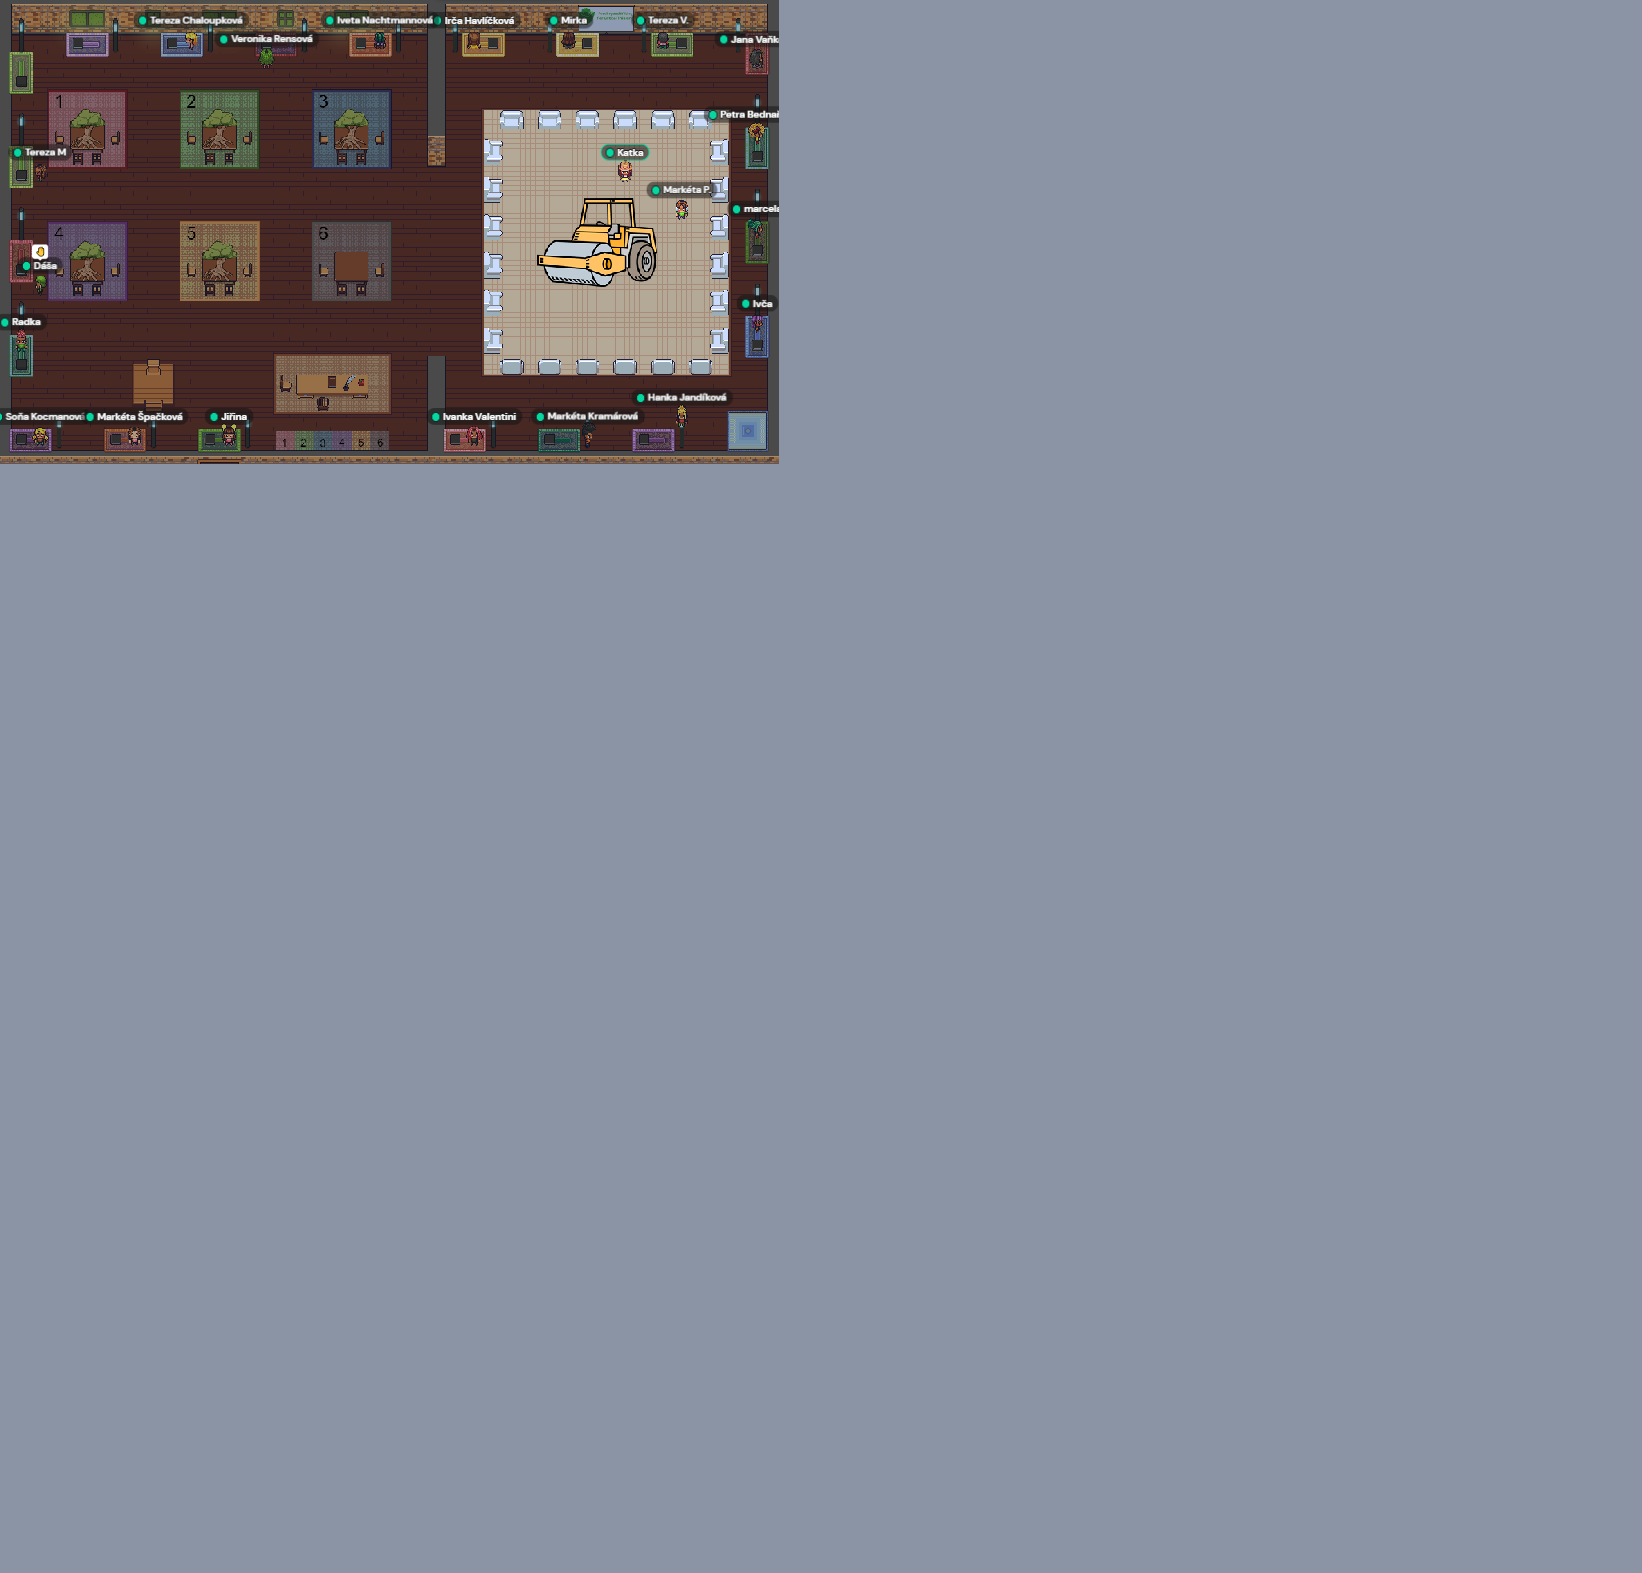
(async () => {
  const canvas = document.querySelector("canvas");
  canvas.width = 1642;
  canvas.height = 1573;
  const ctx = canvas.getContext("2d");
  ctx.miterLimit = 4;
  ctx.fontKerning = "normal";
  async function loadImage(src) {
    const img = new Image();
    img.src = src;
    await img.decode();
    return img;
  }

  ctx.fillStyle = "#8b94a5";
  ctx.fillRect(0, 0, 1642, 1573);
  ctx.drawImage(await loadImage("img/1.png"), 0, 0, 779, 464);
})();
